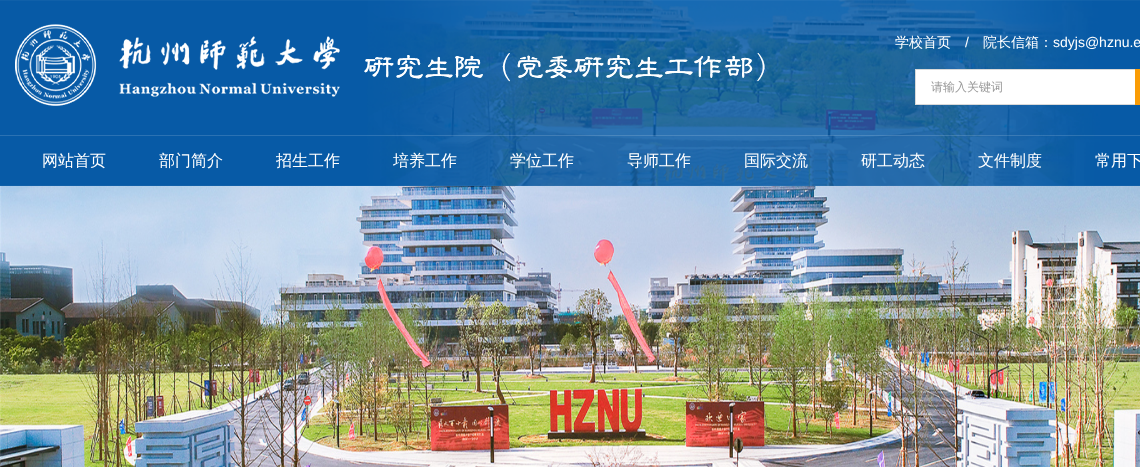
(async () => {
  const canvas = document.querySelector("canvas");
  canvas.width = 1140;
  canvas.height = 467;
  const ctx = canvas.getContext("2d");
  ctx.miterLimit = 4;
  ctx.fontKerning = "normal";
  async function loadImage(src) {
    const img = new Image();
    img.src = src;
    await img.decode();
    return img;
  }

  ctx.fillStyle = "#ffffff";
  ctx.fillRect(0, 0, 1140, 467);
  ctx.drawImage(await loadImage("img/1.png"), 0, 0, 1140, 186);
  ctx.drawImage(await loadImage("img/2.png"), 15, 24, 750, 82);
  for (const [x, y, w, h, color] of [
    [916, 70, 219, 34, "#ffffff"],
    [915, 69, 220, 1, "#d9d9d9"],
    [915, 104, 220, 1, "#d9d9d9"],
    [915, 69, 1, 36, "#d9d9d9"],
    [1135, 69, 5, 36, "#fa9c05"],
    [0, 135, 1140, 1, "rgba(255, 255, 255, 0.15)"],
  ]) {
    ctx.fillStyle = color;
    ctx.fillRect(x, y, w, h);
  }
  ctx.drawImage(await loadImage("img/3.png"), 0, 186, 1140, 281);
  ctx.font = "500 14px WenQuanYi Zen Hei";
  ctx.fillStyle = "#ffffff";
  ctx.fillText("学校首页", 895, 47);
  ctx.font = "14px Liberation Sans";
  ctx.fillText("/", 965, 47);
  ctx.font = "500 14px WenQuanYi Zen Hei";
  ctx.fillText("院长信箱：", 983, 47);
  ctx.font = "14px Liberation Sans";
  ctx.fillText("sdyjs@hznu.e", 1053, 47);
  ctx.font = "500 12px WenQuanYi Zen Hei";
  ctx.fillStyle = "#999999";
  ctx.fillText("请输入关键词", 931, 91);
  ctx.font = "500 16px WenQuanYi Zen Hei";
  ctx.fillStyle = "#ffffff";
  for (const [text, x, y] of [
    ["网站首页", 42, 166],
    ["部门简介", 159, 166],
    ["招生工作", 276, 166],
    ["培养工作", 393, 166],
    ["学位工作", 510, 166],
    ["导师工作", 627, 166],
    ["国际交流", 744, 166],
    ["研工动态", 861, 166],
    ["文件制度", 978, 166],
    ["常用下", 1095, 166],
  ]) {
    ctx.fillText(text, x, y);
  }
})();
